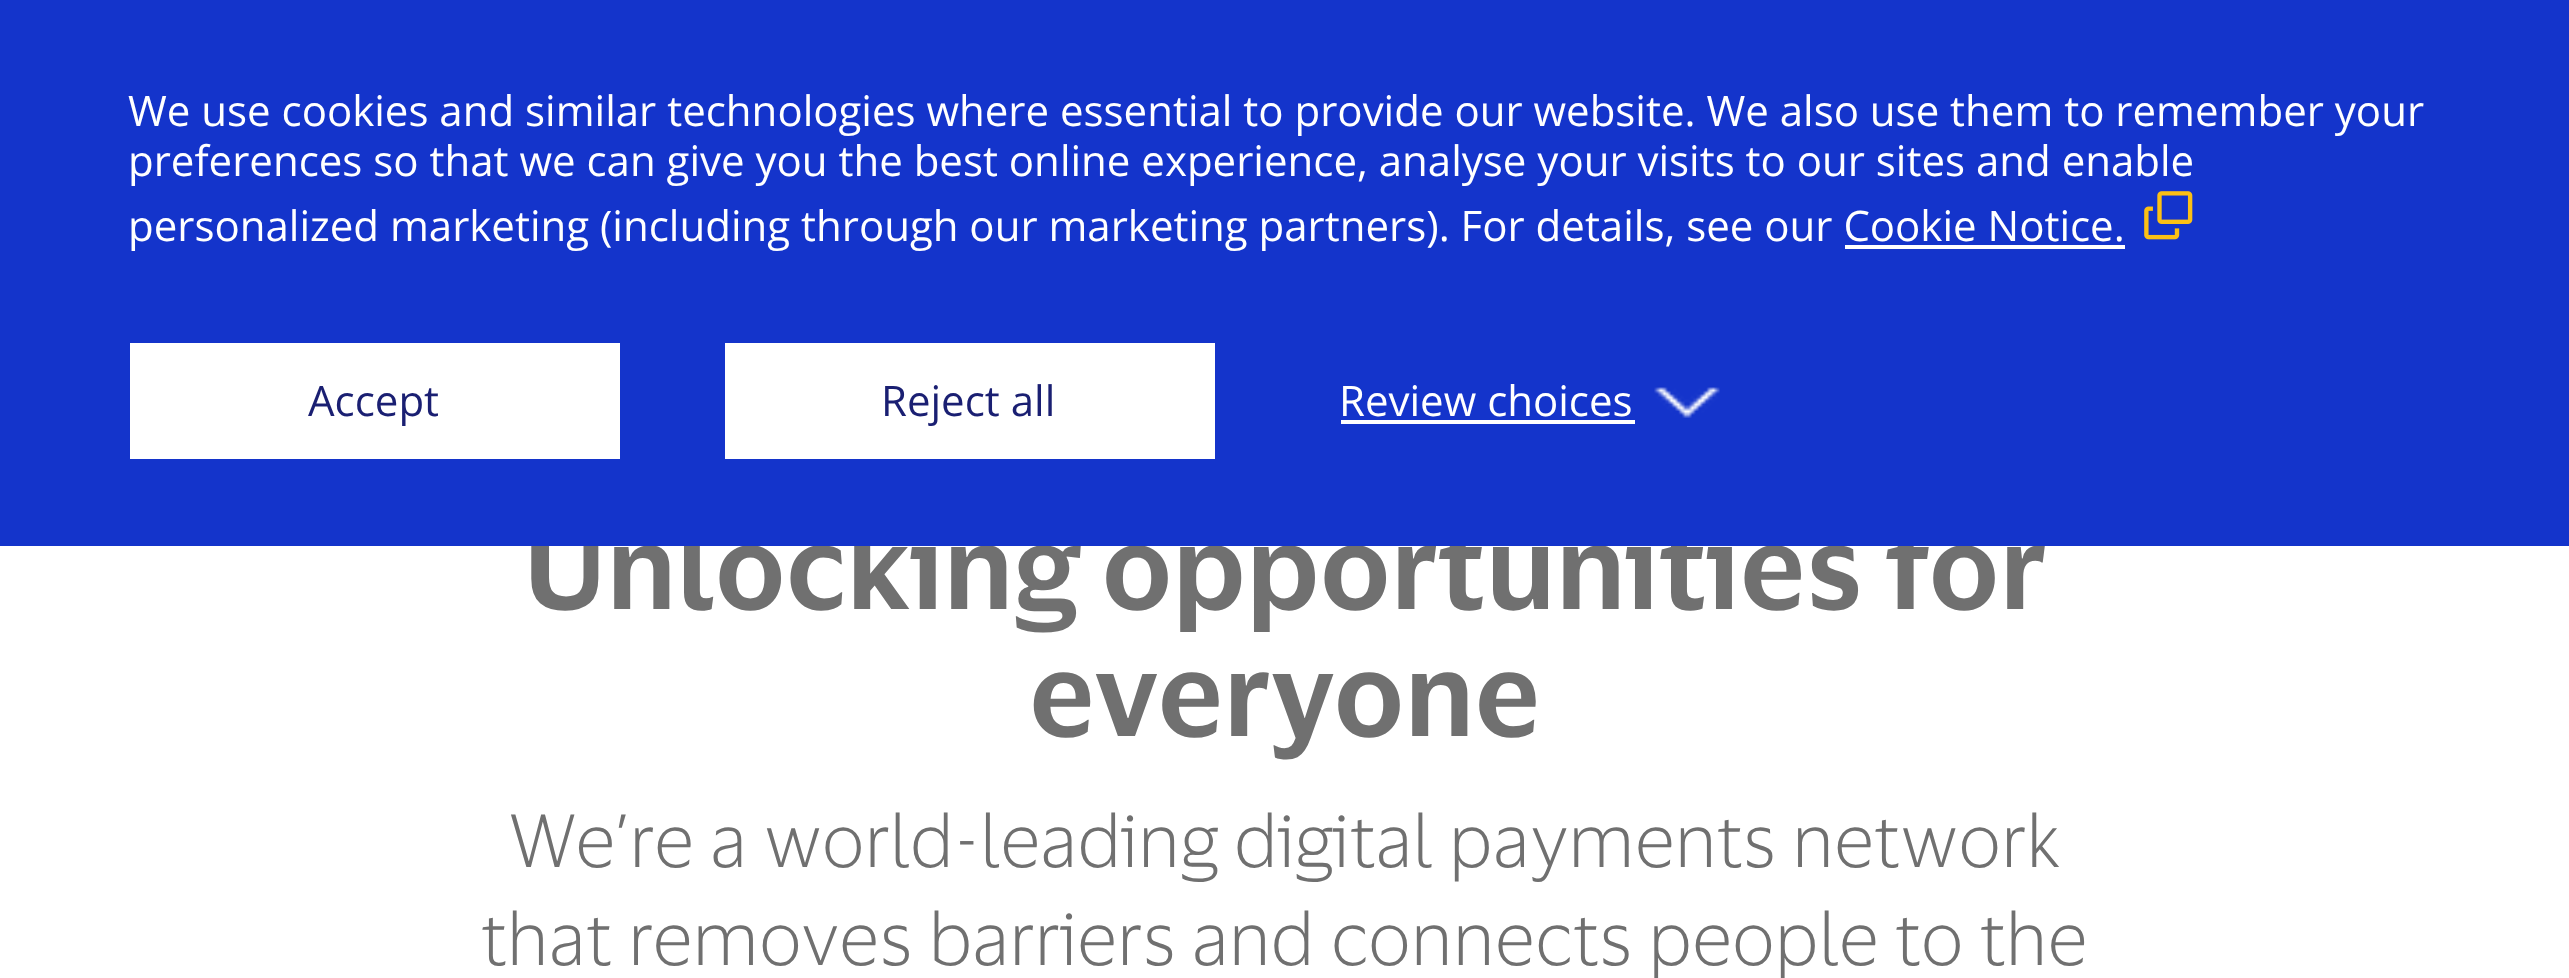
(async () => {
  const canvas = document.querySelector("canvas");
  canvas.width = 2569;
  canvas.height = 978;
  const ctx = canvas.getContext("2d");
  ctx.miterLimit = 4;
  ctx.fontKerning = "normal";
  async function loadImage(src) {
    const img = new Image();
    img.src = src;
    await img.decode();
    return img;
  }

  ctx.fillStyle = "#ffffff";
  ctx.fillRect(0, 0, 2569, 978);
  ctx.font = "600 115.5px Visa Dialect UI";
  ctx.fillStyle = "#707070";
  ctx.fillText("Unlocking opportunities for", 523, 609);
  ctx.fillStyle = "#1434cb";
  ctx.fillRect(0, 0, 2569, 546);
  ctx.drawImage(await loadImage("img/2.png"), 1654, 387, 66, 31);
  ctx.font = "42px Open Sans";
  ctx.fillStyle = "#ffffff";
  ctx.fillText("Review choices", 1339, 416);
  ctx.fillRect(1341, 420, 294, 4);
  ctx.fillRect(725, 343, 490, 116);
  ctx.fillStyle = "#1a1f72";
  ctx.fillText("Reject all", 881, 416);
  ctx.fillStyle = "#ffffff";
  ctx.fillRect(130, 343, 490, 116);
  ctx.fillStyle = "#1a1f72";
  ctx.fillText("Accept", 308, 416);
  ctx.drawImage(await loadImage("img/1.png"), 2144, 191, 49, 49);
  ctx.fillStyle = "#ffffff";
  ctx.fillRect(1845, 245, 280, 4);
  for (const [text, x, y] of [
    ["personalized marketing (including through our marketing partners). For details, see our Cookie Notice.", 128, 241],
    ["preferences so that we can give you the best online experience, analyse your visits to our sites and enable", 128, 176],
    ["We use cookies and similar technologies where essential to provide our website. We also use them to remember your", 128, 126],
  ]) {
    ctx.fillText(text, x, y);
  }
  ctx.font = "600 115.5px Visa Dialect UI";
  ctx.fillStyle = "#707070";
  ctx.fillText("everyone", 1029, 736);
  ctx.font = "300 73.5px Visa Dialect UI";
  ctx.fillText("We’re a world-leading digital payments network", 508, 867);
  ctx.fillText("that removes barriers and connects people to the", 481, 965);
})();
